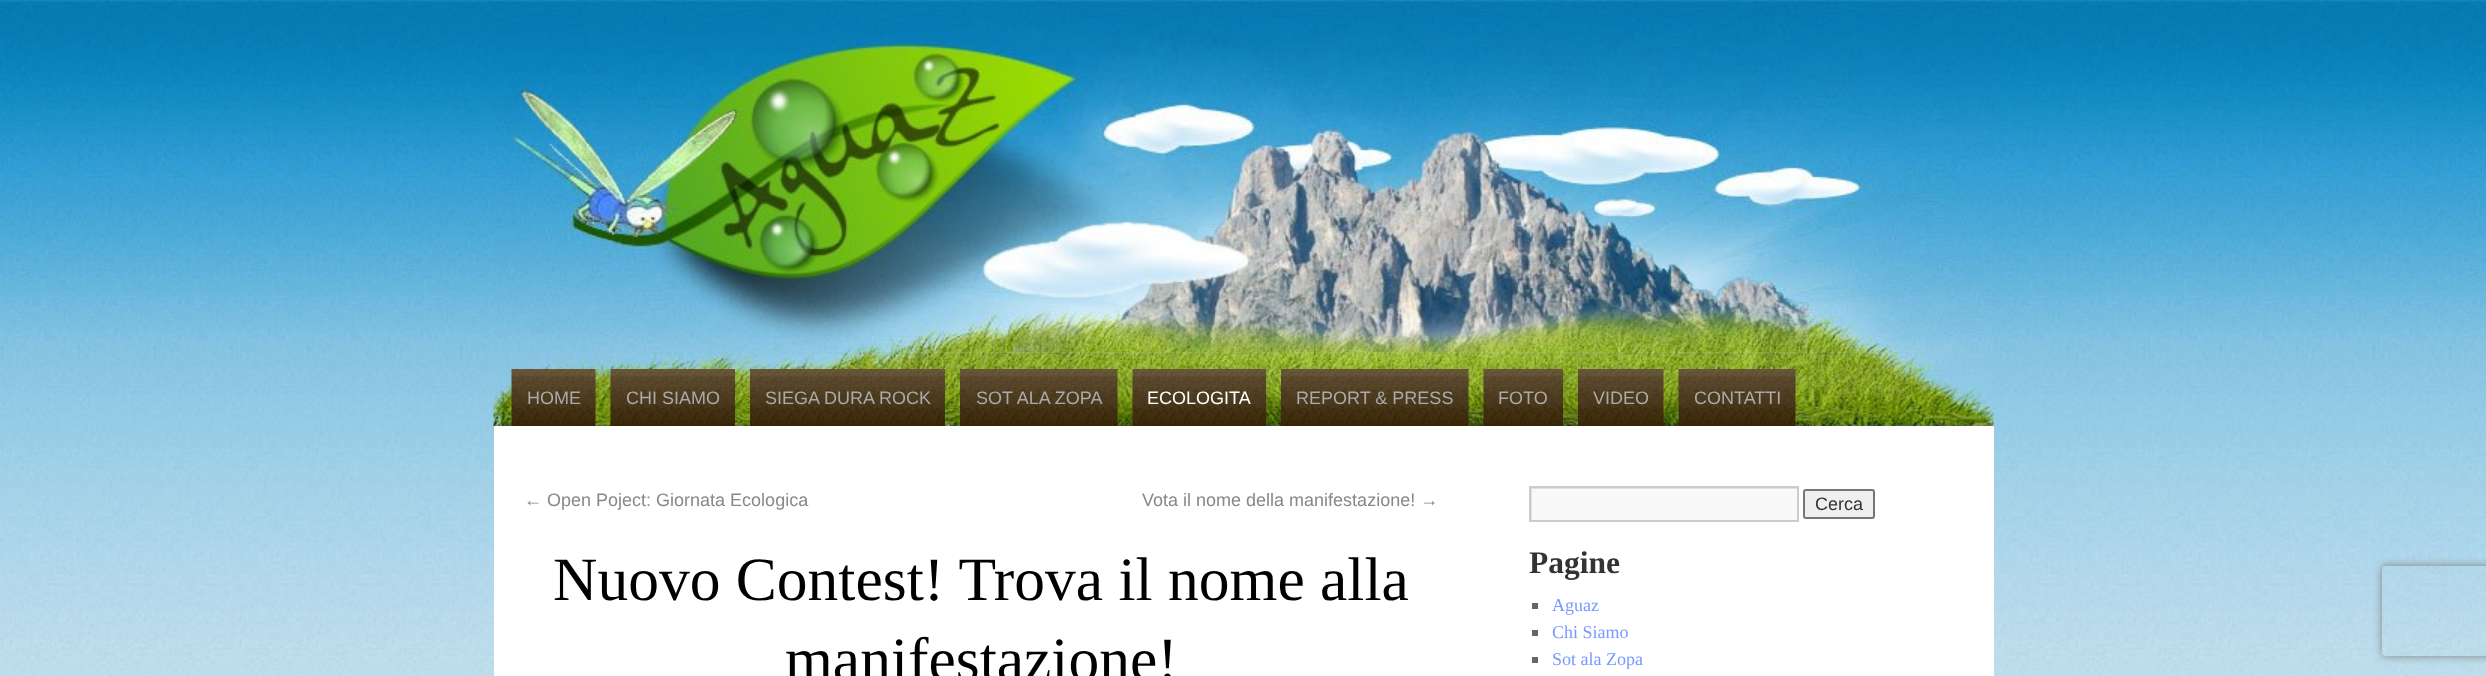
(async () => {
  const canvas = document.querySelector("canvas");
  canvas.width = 2486;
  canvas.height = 676;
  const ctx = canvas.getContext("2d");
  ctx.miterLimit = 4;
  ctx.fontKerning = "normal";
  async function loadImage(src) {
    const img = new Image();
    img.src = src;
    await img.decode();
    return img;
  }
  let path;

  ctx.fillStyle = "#ffffff";
  ctx.fillRect(0, 0, 2486, 676);
  ctx.drawImage(await loadImage("img/1.png"), 0, 0, 2486, 676);
  ctx.drawImage(await loadImage("img/2.png"), 493, 0, 1501, 353);
  ctx.drawImage(await loadImage("img/3.png"), 493, 352, 1501, 74);
  ctx.drawImage(await loadImage("img/4.png"), 511, 369, 85, 57);
  ctx.drawImage(await loadImage("img/5.png"), 610, 369, 125, 57);
  ctx.drawImage(await loadImage("img/6.png"), 750, 369, 195, 57);
  ctx.drawImage(await loadImage("img/7.png"), 960, 369, 158, 57);
  ctx.drawImage(await loadImage("img/8.png"), 1132, 369, 134, 57);
  ctx.drawImage(await loadImage("img/9.png"), 1281, 369, 188, 57);
  ctx.drawImage(await loadImage("img/10.png"), 1483, 369, 80, 57);
  ctx.drawImage(await loadImage("img/11.png"), 1578, 369, 86, 57);
  ctx.drawImage(await loadImage("img/12.png"), 1678, 369, 118, 57);
  ctx.fillRect(494, 426, 1500, 250);
  ctx.fillStyle = "#f9f9f9";
  ctx.fillRect(1532, 489, 265, 31);
  ctx.save();
  ctx.beginPath();
  ctx.rect(1530, 488, 267, 33);
  ctx.clip();
  ctx.fillStyle = "#e0e0e0";
  path = new Path2D("M1382 339H1946V669H1382ZM1532 489H1798V522H1532Z");
  ctx.fill(path, "evenodd");
  ctx.restore();
  ctx.strokeStyle = "#cccccc";
  ctx.lineWidth = 2;
  ctx.strokeRect(1530, 487, 268, 34);
  ctx.fillStyle = "#efefef";
  ctx.beginPath();
  ctx.roundRect(1804, 490, 70, 28, 2);
  ctx.fill();
  ctx.strokeStyle = "#767676";
  ctx.stroke();
  for (const [x, y, w, h, color] of [
    [1532, 603, 6, 6, "#666666"],
    [1532, 630, 6, 6, "#666666"],
    [1532, 657, 6, 6, "#666666"],
  ]) {
    ctx.fillStyle = color;
    ctx.fillRect(x, y, w, h);
  }
  ctx.save();
  path = new Path2D("M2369 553H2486V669H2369ZM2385 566H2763C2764.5 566 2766 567.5 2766 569V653C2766 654.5 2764.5 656 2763 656H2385C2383.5 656 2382 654.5 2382 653V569C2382 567.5 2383.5 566 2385 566Z");
  ctx.clip(path, "evenodd");
  ctx.fillStyle = "#808080";
  ctx.filter = "blur(4px)";
  ctx.beginPath();
  ctx.roundRect(2382, 566, 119, 90, 3);
  ctx.fill();
  ctx.filter = "none";
  ctx.restore();
  ctx.font = "18px Liberation Sans";
  ctx.fillStyle = "#aaaaaa";
  for (const [text, x, y] of [
    ["HOME", 527, 404],
    ["CHI SIAMO", 626, 404],
    ["SIEGA DURA ROCK", 765, 404],
    ["SOT ALA ZOPA", 976, 404],
  ]) {
    ctx.fillText(text, x, y);
  }
  ctx.fillStyle = "#ffffff";
  ctx.fillText("ECOLOGITA", 1147, 404);
  ctx.fillStyle = "#aaaaaa";
  for (const [text, x, y] of [
    ["REPORT & PRESS", 1296, 404],
    ["FOTO", 1498, 404],
    ["VIDEO", 1593, 404],
    ["CONTATTI", 1694, 404],
  ]) {
    ctx.fillText(text, x, y);
  }
  ctx.fillStyle = "#888888";
  ctx.fillText("← Open Poject: Giornata Ecologica", 524, 506);
  ctx.fillText("Vota il nome della manifestazione! →", 1142, 506);
  ctx.font = "61.5px Liberation Serif";
  ctx.fillStyle = "#000000";
  ctx.fillText("Nuovo Contest! Trova il nome alla", 553, 600);
  ctx.fillText("manifestazione!", 785, 680);
  ctx.font = "18px Liberation Sans";
  ctx.fillStyle = "#333333";
  ctx.fillText("Cerca", 1815, 510);
  ctx.font = "bold 31.5px Liberation Serif";
  ctx.fillText("Pagine", 1529, 573);
  ctx.font = "18px Liberation Serif";
  ctx.fillStyle = "#7799ff";
  for (const [text, x, y] of [
    ["Aguaz", 1552, 611],
    ["Chi Siamo", 1552, 638],
    ["Sot ala Zopa", 1552, 665],
  ]) {
    ctx.fillText(text, x, y);
  }
})();
